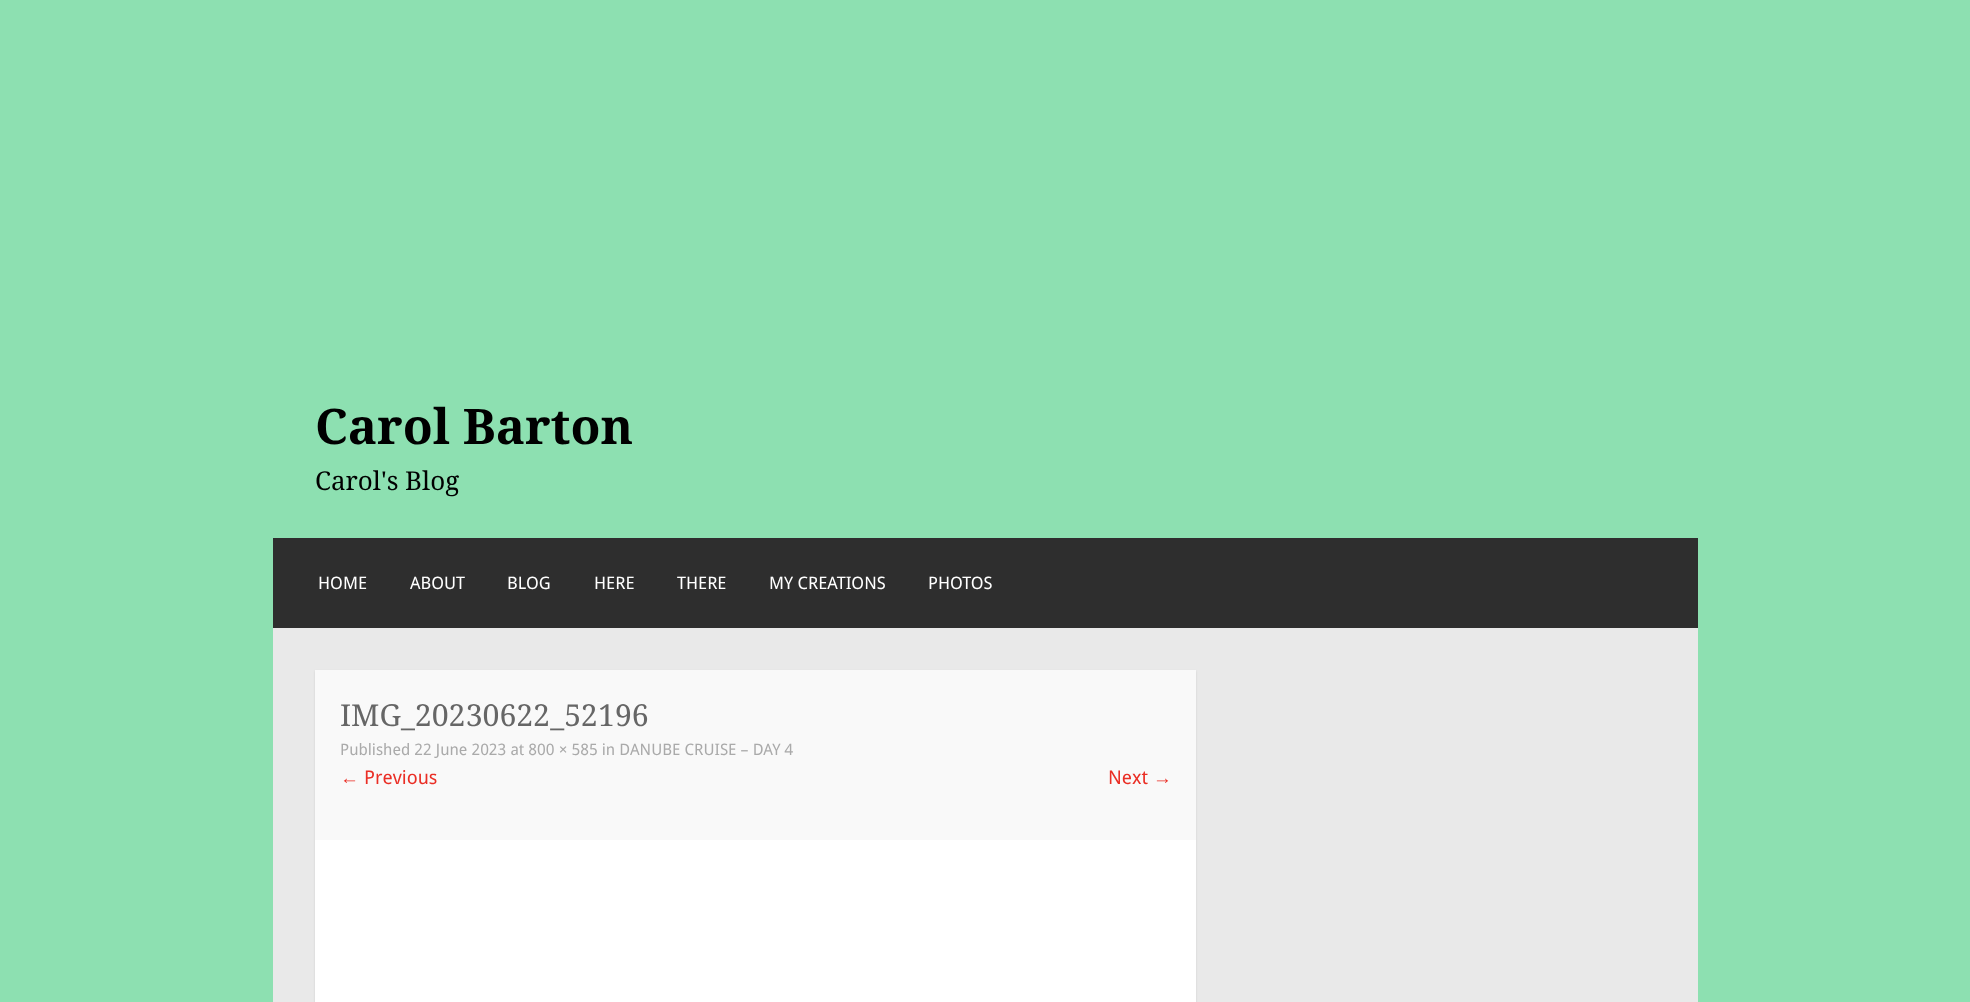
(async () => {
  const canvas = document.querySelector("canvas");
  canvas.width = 1970;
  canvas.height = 1002;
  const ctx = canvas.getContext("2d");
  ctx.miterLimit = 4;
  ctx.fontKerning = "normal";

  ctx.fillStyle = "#8de0b1";
  ctx.fillRect(0, 0, 1970, 1002);
  ctx.fillStyle = "#2e2e2e";
  ctx.fillRect(273, 538, 1425, 90);
  ctx.fillStyle = "#e9e9e9";
  ctx.fillRect(273, 628, 1425, 374);
  ctx.fillStyle = "rgba(0, 0, 0, 0.1)";
  ctx.filter = "blur(1px)";
  ctx.beginPath();
  ctx.rect(315, 671, 881, 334);
  ctx.fill();
  ctx.filter = "none";
  ctx.fillStyle = "#ffffff";
  ctx.fillRect(315, 840, 881, 162);
  ctx.fillStyle = "#f9f9f9";
  ctx.fillRect(315, 670, 881, 170);
  ctx.font = "bold 49px Droid Serif";
  ctx.fillStyle = "#000000";
  ctx.fillText("Carol Barton", 315, 444);
  ctx.font = "26px Droid Serif";
  ctx.fillText("Carol's Blog", 315, 490);
  ctx.font = "17.25px Droid Sans";
  ctx.fillStyle = "#ffffff";
  for (const [text, x, y] of [
    ["HOME", 318, 589],
    ["ABOUT", 410, 589],
    ["BLOG", 507, 589],
    ["HERE", 594, 589],
    ["THERE", 677, 589],
    ["MY CREATIONS", 769, 589],
    ["PHOTOS", 928, 589],
  ]) {
    ctx.fillText(text, x, y);
  }
  ctx.font = "30.25px Droid Serif";
  ctx.fillStyle = "#666666";
  ctx.fillText("IMG_20230622_52196", 340, 726);
  ctx.font = "15.85px Droid Sans";
  ctx.fillStyle = "#aaaaaa";
  ctx.fillText("Published 22 June 2023 at 800 × 585 in DANUBE CRUISE – DAY 4", 340, 755);
  ctx.font = "19px Liberation Sans";
  ctx.fillStyle = "#ea2e25";
  ctx.fillText("←", 340, 784);
  ctx.font = "19px Droid Sans";
  ctx.fillText("Previous", 364, 784);
  ctx.fillText("Next", 1108, 784);
  ctx.font = "19px Liberation Sans";
  ctx.fillText("→", 1153, 784);
})();
